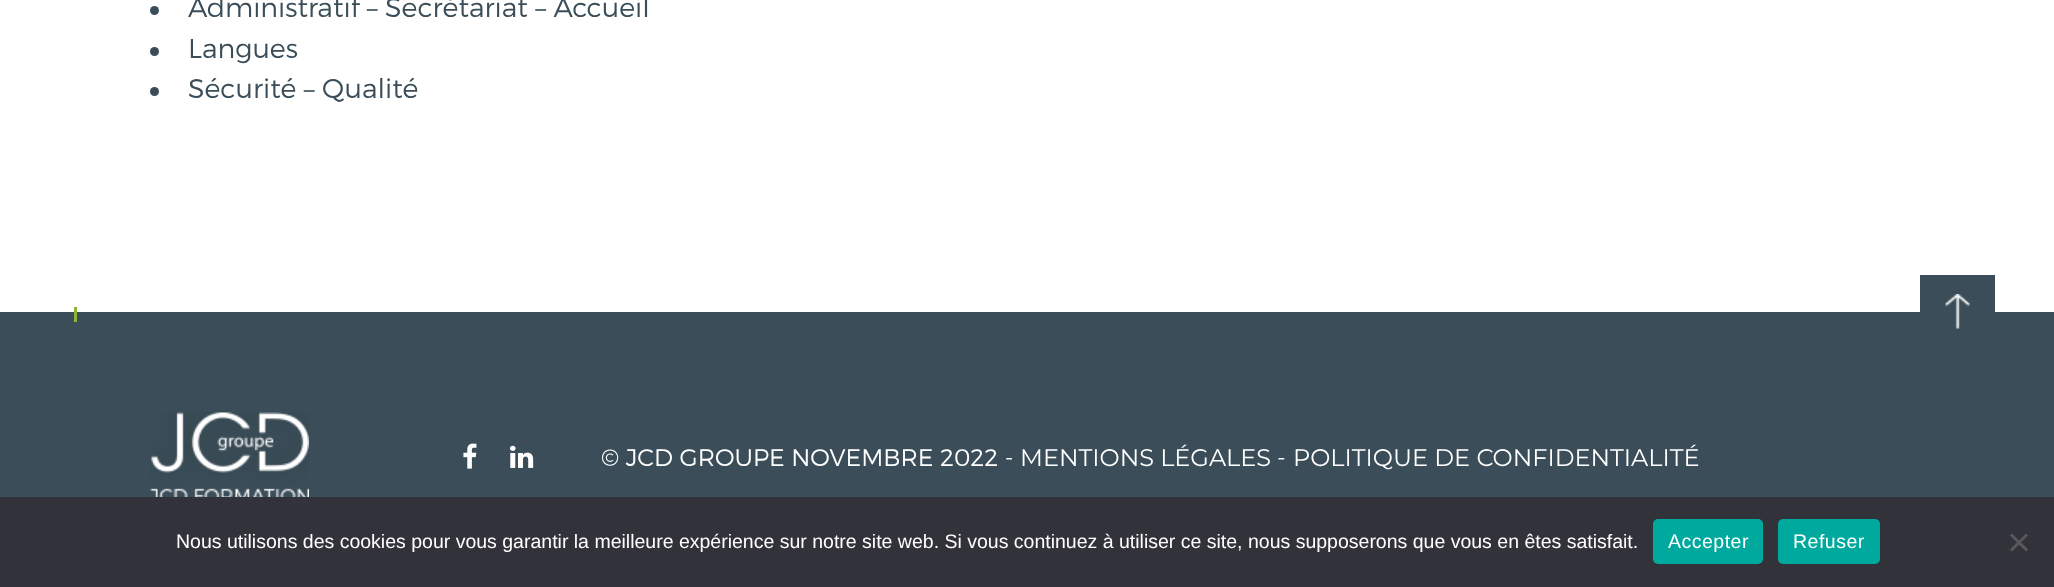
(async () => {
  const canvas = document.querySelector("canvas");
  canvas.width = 2054;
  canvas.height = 587;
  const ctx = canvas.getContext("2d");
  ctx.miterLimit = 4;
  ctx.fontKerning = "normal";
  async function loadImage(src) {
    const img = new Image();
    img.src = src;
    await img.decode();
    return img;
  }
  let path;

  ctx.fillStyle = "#ffffff";
  ctx.fillRect(0, 0, 2054, 587);
  ctx.fillStyle = "#3a4d58";
  ctx.beginPath();
  ctx.arc(154.5, 10.5, 4.5, 0, Math.PI * 2);
  ctx.fill();
  ctx.beginPath();
  ctx.arc(154.5, 51.5, 4.5, 0, Math.PI * 2);
  ctx.fill();
  ctx.beginPath();
  ctx.arc(154.5, 91.5, 4.5, 0, Math.PI * 2);
  ctx.fill();
  for (const [x, y, w, h, color] of [
    [0, 312, 2054, 185, "#3a4d58"],
    [74, 307, 3, 15, "#88b636"],
    [1920, 275, 75, 37, "#3a4d58"],
  ]) {
    ctx.fillStyle = color;
    ctx.fillRect(x, y, w, h);
  }
  ctx.drawImage(await loadImage("img/1.png"), 1945, 294, 25, 35);
  ctx.drawImage(await loadImage("img/2.png"), 150, 412, 159, 85);
  ctx.drawImage(await loadImage("img/3.png"), 463, 443, 14, 26);
  ctx.drawImage(await loadImage("img/4.png"), 510, 445, 24, 23);
  ctx.fillStyle = "#32323a";
  ctx.fillRect(0, 497, 2054, 90);
  ctx.fillStyle = "#00a99d";
  ctx.beginPath();
  ctx.roundRect(1653, 519, 110, 45, 5);
  ctx.fill();
  ctx.beginPath();
  ctx.roundRect(1778, 519, 102, 45, 5);
  ctx.fill();
  ctx.fillStyle = "#59595d";
  path = new Path2D("M2026 533.5L2028 535.5L2012 551.5L2010 549.5Z");
  ctx.fill(path);
  path = new Path2D("M2010 535.5L2012 533.5L2028 549.5L2026 551.5Z");
  ctx.fill(path);
  ctx.font = "300 27px Montserrat";
  ctx.fillStyle = "#3a4d58";
  for (const [text, x, y] of [
    ["Administratif – Secrétariat – Accueil", 188, 17],
    ["Langues", 188, 58],
    ["Sécurité – Qualité", 188, 98],
  ]) {
    ctx.fillText(text, x, y);
  }
  ctx.font = "300 24px Montserrat";
  ctx.fillStyle = "#ffffff";
  ctx.fillText("© JCD GROUPE NOVEMBRE 2022 -", 601, 466);
  ctx.font = "24px Montserrat";
  ctx.fillText("MENTIONS LÉGALES", 1020, 466);
  ctx.font = "300 24px Montserrat";
  ctx.fillText("-", 1277, 466);
  ctx.font = "24px Montserrat";
  ctx.fillText("POLITIQUE DE CONFIDENTIALITÉ", 1293, 466);
  ctx.font = "19.5px Liberation Sans";
  ctx.fillText("Nous utilisons des cookies pour vous garantir la meilleure expérience sur notre site web. Si vous continuez à utiliser ce site, nous supposerons que vous en êtes satisfait.", 176, 548);
  ctx.letterSpacing = "0.5px";
  ctx.fillText("Accepter", 1668, 548);
  ctx.fillText("Refuser", 1793, 548);
})();
